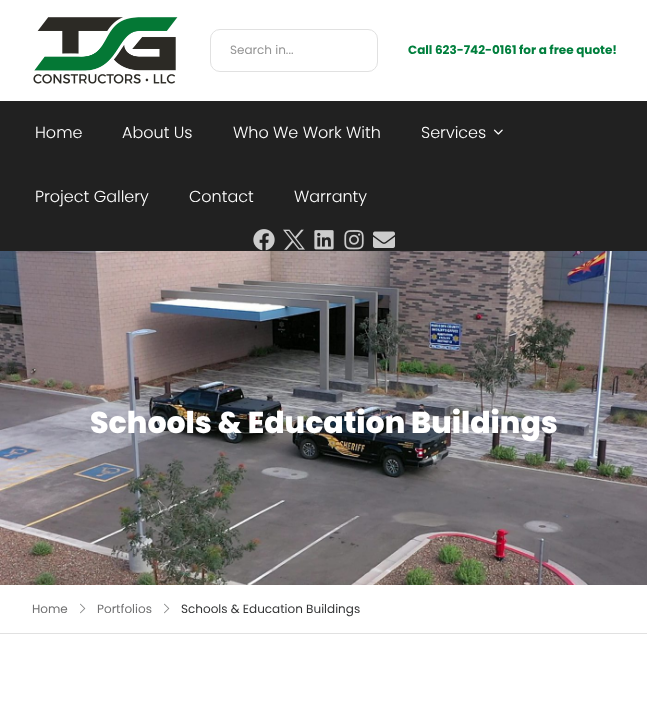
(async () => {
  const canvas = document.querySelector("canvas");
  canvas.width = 647;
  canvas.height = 709;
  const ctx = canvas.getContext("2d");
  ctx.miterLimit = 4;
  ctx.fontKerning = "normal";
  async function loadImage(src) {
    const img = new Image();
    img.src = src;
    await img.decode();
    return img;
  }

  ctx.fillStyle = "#ffffff";
  ctx.fillRect(0, 0, 647, 709);
  ctx.drawImage(await loadImage("img/1.png"), 33, 17, 145, 67);
  ctx.beginPath();
  ctx.roundRect(210.5, 29.5, 167, 42, 9.5);
  ctx.strokeStyle = "#e1e1e1";
  ctx.stroke();
  ctx.fillStyle = "#212121";
  ctx.fillRect(0, 101, 647, 150);
  ctx.drawImage(await loadImage("img/2.png"), 493, 129, 10, 6);
  ctx.drawImage(await loadImage("img/3.png"), 253, 229, 22, 22);
  ctx.drawImage(await loadImage("img/4.png"), 283, 229, 22, 21);
  ctx.drawImage(await loadImage("img/5.png"), 314, 230, 20, 20);
  ctx.fillStyle = "#262626";
  ctx.beginPath();
  ctx.arc(354, 240, 11, 0, Math.PI * 2);
  ctx.fill();
  ctx.drawImage(await loadImage("img/6.png"), 344, 230, 20, 20);
  ctx.drawImage(await loadImage("img/7.png"), 373, 231, 22, 17);
  ctx.drawImage(await loadImage("img/8.png"), 0, 251, 647, 334);
  ctx.fillStyle = "#e1e1e1";
  ctx.fillRect(0, 633, 647, 1);
  ctx.drawImage(await loadImage("img/9.png"), 80, 603, 6, 11);
  ctx.drawImage(await loadImage("img/9.png"), 164, 603, 6, 11);
  ctx.font = "12px Poppins";
  ctx.fillStyle = "#949494";
  ctx.fillText("Search in...", 230, 54);
  ctx.font = "bold 12px Poppins";
  ctx.fillStyle = "#007f3d";
  ctx.fillText("Call 623-742-0161 for a free quote!", 408, 54);
  ctx.font = "300 16px Poppins";
  ctx.fillStyle = "#ffffff";
  for (const [text, x, y] of [
    ["Home", 35, 138],
    ["About Us", 122, 138],
    ["Who We Work With", 233, 138],
    ["Services", 421, 138],
    ["Project Gallery", 35, 202],
    ["Contact", 189, 202],
    ["Warranty", 294, 202],
  ]) {
    ctx.fillText(text, x, y);
  }
  ctx.font = "800 30px Poppins";
  ctx.fillText("Schools & Education Buildings", 90, 433);
  ctx.font = "12px Poppins";
  ctx.fillStyle = "#707071";
  ctx.fillText("Home", 32, 613);
  ctx.fillText("Portfolios", 97, 613);
  ctx.fillStyle = "#323334";
  ctx.fillText("Schools & Education Buildings", 181, 613);
})();
